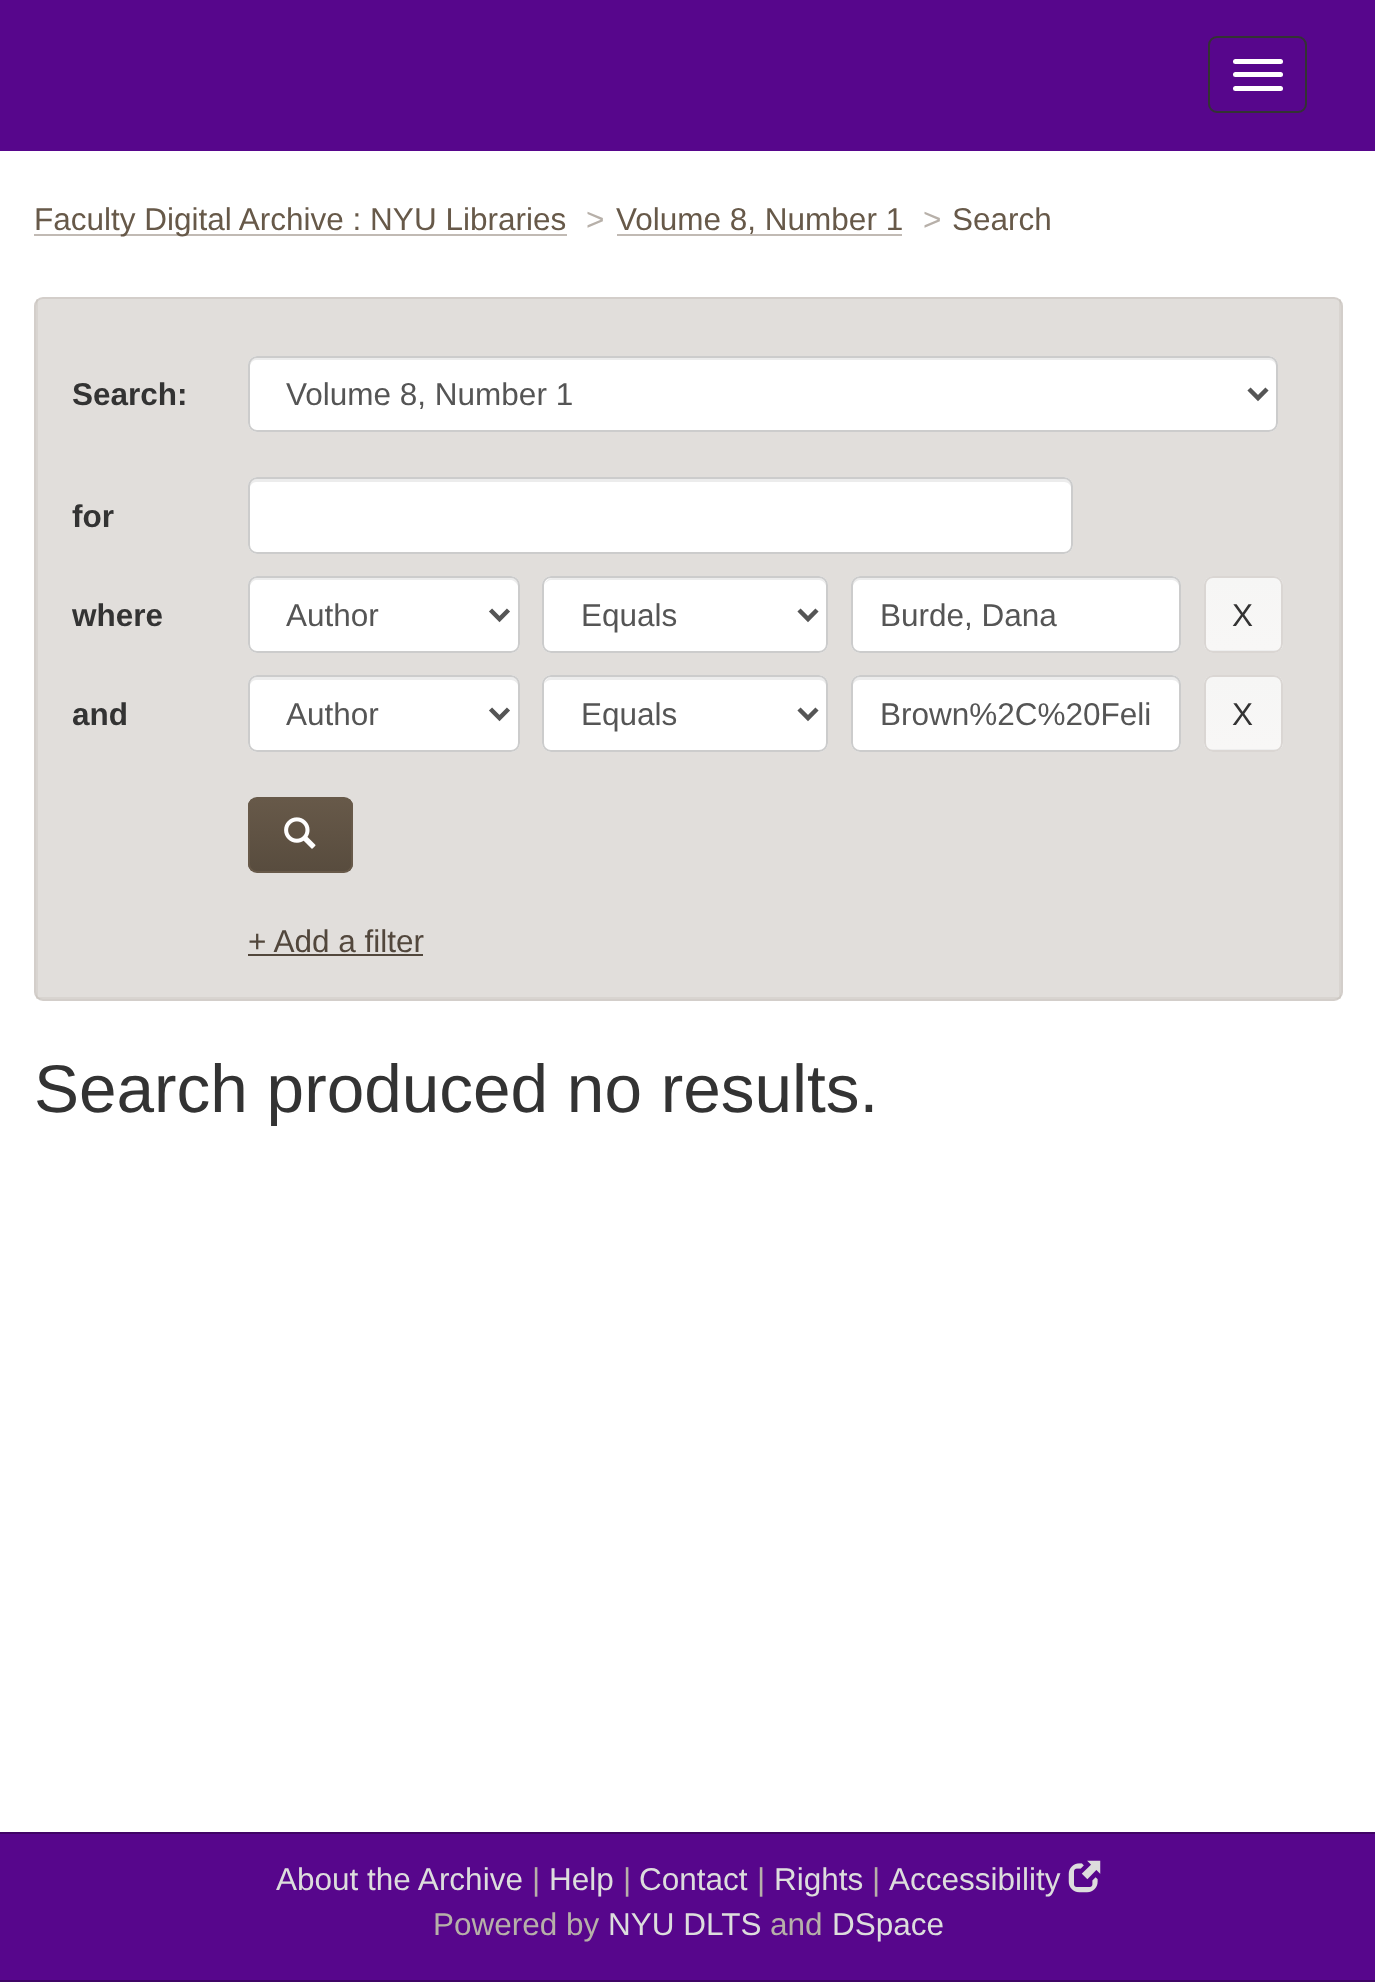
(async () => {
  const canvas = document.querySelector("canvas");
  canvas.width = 1375;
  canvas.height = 1982;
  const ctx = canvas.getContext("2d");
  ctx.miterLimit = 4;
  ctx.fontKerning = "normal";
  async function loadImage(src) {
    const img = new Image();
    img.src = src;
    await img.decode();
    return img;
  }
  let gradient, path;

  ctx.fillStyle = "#ffffff";
  ctx.fillRect(0, 0, 1375, 1982);
  ctx.fillStyle = "#57068c";
  ctx.fillRect(0, 0, 1375, 151);
  ctx.beginPath();
  ctx.roundRect(1209, 37, 97, 75, 8);
  ctx.strokeStyle = "#333333";
  ctx.lineWidth = 2;
  ctx.stroke();
  ctx.fillStyle = "#ffffff";
  ctx.beginPath();
  ctx.roundRect(1233, 59, 50, 5, 2.5);
  ctx.fill();
  ctx.beginPath();
  ctx.roundRect(1233, 72, 50, 5, 2.5);
  ctx.fill();
  ctx.beginPath();
  ctx.roundRect(1233, 86, 50, 5, 2.5);
  ctx.fill();
  ctx.fillStyle = "#c1bab4";
  ctx.fillRect(34, 234, 533, 2);
  ctx.fillRect(617, 234, 285, 2);
  ctx.fillStyle = "#e1dedb";
  ctx.beginPath();
  ctx.roundRect(35, 298, 1307, 702, 8);
  ctx.fill();
  ctx.strokeStyle = "#d3ceca";
  ctx.stroke();
  ctx.fillStyle = "rgba(181, 173, 166, 0.2)";
  path = new Path2D("M1341 299V999L1339 997V299Z");
  ctx.fill(path);
  path = new Path2D("M1341 999H36L38 997H1339Z");
  ctx.fill(path);
  path = new Path2D("M36 999V299H38V997Z");
  ctx.fill(path);
  ctx.fillStyle = "#ffffff";
  ctx.beginPath();
  ctx.roundRect(248, 356, 1030, 76, 9);
  ctx.fill();
  ctx.fillStyle = "#ececec";
  path = new Path2D("M256 360H1269C1273 360 1276 363 1276 367V365C1276 361 1273 358 1269 358H257C253 358 250 361 250 365V367C250 363 253 360 256 360Z");
  ctx.fill(path);
  ctx.beginPath();
  ctx.roundRect(249, 357, 1028, 74, 8);
  ctx.strokeStyle = "#cccccc";
  ctx.stroke();
  path = new Path2D("M1249 389L1258 398L1267 389");
  ctx.strokeStyle = "#555555";
  ctx.lineWidth = 4.5;
  ctx.stroke(path);
  ctx.fillStyle = "#ffffff";
  ctx.beginPath();
  ctx.roundRect(248, 477, 825, 77, 9);
  ctx.fill();
  ctx.fillStyle = "#ececec";
  path = new Path2D("M256 482H1064C1068 482 1071 485 1071 488V486C1071 482 1068 479 1064 479H257C253 479 250 482 250 486V488C250 485 253 482 256 482Z");
  ctx.fill(path);
  ctx.beginPath();
  ctx.roundRect(249, 478, 823, 75, 8);
  ctx.strokeStyle = "#cccccc";
  ctx.lineWidth = 2;
  ctx.stroke();
  ctx.fillStyle = "#ffffff";
  ctx.beginPath();
  ctx.roundRect(248, 576, 272, 77, 9);
  ctx.fill();
  ctx.fillStyle = "#ececec";
  path = new Path2D("M256 580H511C514 580 518 584 518 587V585C518 581 515 578 511 578H257C253 578 250 581 250 585V587C250 584 253 580 256 580Z");
  ctx.fill(path);
  ctx.beginPath();
  ctx.roundRect(249, 577, 270, 75, 8);
  ctx.stroke();
  path = new Path2D("M490.5 610L499.5 619L508.5 610");
  ctx.strokeStyle = "#555555";
  ctx.lineWidth = 4.5;
  ctx.stroke(path);
  ctx.fillStyle = "#ffffff";
  ctx.beginPath();
  ctx.roundRect(542, 576, 286, 77, 9);
  ctx.fill();
  ctx.fillStyle = "#ececec";
  path = new Path2D("M551 580H819C823 580 826 584 826 587C826 583 824 578 819 578H552C549 578 546 581 545 584C546 582 549 580 551 580Z");
  ctx.fill(path);
  ctx.beginPath();
  ctx.roundRect(543, 577, 284, 75, 8);
  ctx.strokeStyle = "#cccccc";
  ctx.lineWidth = 2;
  ctx.stroke();
  path = new Path2D("M799 610L808 619L817 610");
  ctx.strokeStyle = "#555555";
  ctx.lineWidth = 4.5;
  ctx.stroke(path);
  ctx.fillStyle = "#ffffff";
  ctx.beginPath();
  ctx.roundRect(851, 576, 330, 77, 9);
  ctx.fill();
  ctx.fillStyle = "#ececec";
  path = new Path2D("M860 580H1172C1176 580 1179 584 1179 587V585C1179 581 1176 578 1172 578H860C856 578 853 581 853 585V587C853 584 856 580 860 580Z");
  ctx.fill(path);
  ctx.beginPath();
  ctx.roundRect(852, 577, 328, 75, 8);
  ctx.strokeStyle = "#cccccc";
  ctx.lineWidth = 2;
  ctx.stroke();
  ctx.fillStyle = "#eeeeee";
  ctx.beginPath();
  ctx.roundRect(1204, 576, 79, 77, 9);
  ctx.fill();
  ctx.save();
  ctx.beginPath();
  ctx.roundRect(1204, 576, 79, 77, 9);
  ctx.clip();
  gradient = ctx.createLinearGradient(1243, 578, 1243, 650);
  gradient.addColorStop(0, "#f6f6f5");
  gradient.addColorStop(1, "#f8f7f6");
  ctx.fillStyle = gradient;
  ctx.fillRect(1204, 578, 79, 72);
  ctx.restore();
  ctx.beginPath();
  ctx.roundRect(1205, 577, 77, 75, 8);
  ctx.strokeStyle = "#dad6d3";
  ctx.stroke();
  ctx.fillStyle = "#ffffff";
  ctx.beginPath();
  ctx.roundRect(248, 675, 272, 77, 9);
  ctx.fill();
  ctx.fillStyle = "#ececec";
  path = new Path2D("M256 680H511C514 680 518 683 518 686V684C518 680 515 677 511 677H257C253 677 250 680 250 684V686C250 683 253 680 256 680Z");
  ctx.fill(path);
  ctx.beginPath();
  ctx.roundRect(249, 676, 270, 75, 8);
  ctx.strokeStyle = "#cccccc";
  ctx.stroke();
  path = new Path2D("M490.5 709L499.5 718L508.5 709");
  ctx.strokeStyle = "#555555";
  ctx.lineWidth = 4.5;
  ctx.stroke(path);
  ctx.fillStyle = "#ffffff";
  ctx.beginPath();
  ctx.roundRect(542, 675, 286, 77, 9);
  ctx.fill();
  ctx.fillStyle = "#ececec";
  path = new Path2D("M551 680H819C823 680 826 683 826 686V684C826 680 823 677 819 677H552C548 677 545 680 545 683C546 681 549 680 551 680Z");
  ctx.fill(path);
  ctx.beginPath();
  ctx.roundRect(543, 676, 284, 75, 8);
  ctx.strokeStyle = "#cccccc";
  ctx.lineWidth = 2;
  ctx.stroke();
  path = new Path2D("M799 709L808 718L817 709");
  ctx.strokeStyle = "#555555";
  ctx.lineWidth = 4.5;
  ctx.stroke(path);
  ctx.fillStyle = "#ffffff";
  ctx.beginPath();
  ctx.roundRect(851, 675, 330, 77, 9);
  ctx.fill();
  ctx.fillStyle = "#ececec";
  path = new Path2D("M860 680H1172C1176 680 1179 683 1179 686V684C1179 680 1176 677 1172 677H860C856 677 853 680 853 684V686C853 683 856 680 860 680Z");
  ctx.fill(path);
  ctx.beginPath();
  ctx.roundRect(852, 676, 328, 75, 8);
  ctx.strokeStyle = "#cccccc";
  ctx.lineWidth = 2;
  ctx.stroke();
  ctx.fillStyle = "#eeeeee";
  ctx.beginPath();
  ctx.roundRect(1204, 675, 79, 77, 9);
  ctx.fill();
  ctx.save();
  ctx.beginPath();
  ctx.roundRect(1204, 675, 79, 77, 9);
  ctx.clip();
  gradient = ctx.createLinearGradient(1243, 677, 1243, 749);
  gradient.addColorStop(0, "#f6f6f5");
  gradient.addColorStop(1, "#f8f7f6");
  ctx.fillStyle = gradient;
  ctx.fillRect(1204, 677, 79, 72);
  ctx.restore();
  ctx.beginPath();
  ctx.roundRect(1205, 676, 77, 75, 8);
  ctx.strokeStyle = "#dad6d3";
  ctx.stroke();
  ctx.save();
  ctx.beginPath();
  ctx.roundRect(248, 797, 105, 76, 9);
  ctx.clip();
  gradient = ctx.createLinearGradient(300, 799, 300, 871);
  gradient.addColorStop(0, "#675949");
  gradient.addColorStop(1, "#584c3e");
  ctx.fillStyle = gradient;
  ctx.fillRect(248, 799, 105, 72);
  ctx.restore();
  ctx.beginPath();
  ctx.roundRect(249, 798, 103, 74, 8);
  ctx.strokeStyle = "#675949";
  ctx.stroke();
  ctx.drawImage(await loadImage("img/1.png"), 284, 817, 32, 32);
  for (const [x, y, w, h, color] of [
    [248, 954, 175, 2, "#52473c"],
    [0, 1834, 1375, 146, "#57068c"],
    [0, 1832, 1375, 2, "#3f0465"],
    [0, 1980, 1375, 2, "#3f0465"],
  ]) {
    ctx.fillStyle = color;
    ctx.fillRect(x, y, w, h);
  }
  ctx.drawImage(await loadImage("img/2.png"), 1068, 1860, 33, 33);
  ctx.font = "31.5px Liberation Sans";
  ctx.fillStyle = "#675949";
  ctx.fillText("Faculty Digital Archive : NYU Libraries", 34, 230);
  ctx.fillStyle = "#b7b0a9";
  ctx.fillText(">", 586, 230);
  ctx.fillStyle = "#675949";
  ctx.fillText("Volume 8, Number 1", 616, 230);
  ctx.fillStyle = "#b7b0a9";
  ctx.fillText(">", 923, 230);
  ctx.fillStyle = "#675949";
  ctx.fillText("Search", 952, 230);
  ctx.font = "bold 31.5px Liberation Sans";
  ctx.fillStyle = "#333333";
  ctx.fillText("Search:", 72, 405);
  ctx.font = "31.5px Liberation Sans";
  ctx.fillStyle = "#555555";
  ctx.fillText("Volume 8, Number 1", 286, 405);
  ctx.font = "bold 31.5px Liberation Sans";
  ctx.fillStyle = "#333333";
  ctx.fillText("for", 72, 527);
  ctx.fillText("where", 72, 626);
  ctx.font = "31.5px Liberation Sans";
  ctx.fillStyle = "#555555";
  for (const [text, x, y] of [
    ["Author", 286, 626],
    ["Equals", 581, 626],
    ["Burde, Dana", 880, 626],
  ]) {
    ctx.fillText(text, x, y);
  }
  ctx.fillStyle = "#333333";
  ctx.fillText("X", 1232, 626);
  ctx.font = "bold 31.5px Liberation Sans";
  ctx.fillText("and", 72, 725);
  ctx.font = "31.5px Liberation Sans";
  ctx.fillStyle = "#555555";
  for (const [text, x, y] of [
    ["Author", 286, 725],
    ["Equals", 581, 725],
    ["Brown%2C%20Feli", 880, 725],
  ]) {
    ctx.fillText(text, x, y);
  }
  ctx.fillStyle = "#333333";
  ctx.fillText("X", 1232, 725);
  ctx.fillStyle = "#52473c";
  ctx.fillText("+ Add a filter", 248, 952);
  ctx.font = "67.5px Liberation Sans";
  ctx.fillStyle = "#333333";
  ctx.fillText("Search produced no results.", 34, 1112);
  ctx.font = "31.5px Liberation Sans";
  ctx.fillStyle = "#dddddd";
  ctx.fillText("About the Archive", 276, 1890);
  ctx.fillStyle = "#b7b0a9";
  ctx.fillText("|", 532, 1890);
  ctx.fillStyle = "#dddddd";
  ctx.fillText("Help", 549, 1890);
  ctx.fillStyle = "#b7b0a9";
  ctx.fillText("|", 623, 1890);
  ctx.fillStyle = "#dddddd";
  ctx.fillText("Contact", 639, 1890);
  ctx.fillStyle = "#b7b0a9";
  ctx.fillText("|", 757, 1890);
  ctx.fillStyle = "#dddddd";
  ctx.fillText("Rights", 774, 1890);
  ctx.fillStyle = "#b7b0a9";
  ctx.fillText("|", 872, 1890);
  ctx.fillStyle = "#dddddd";
  ctx.fillText("Accessibility", 889, 1890);
  ctx.fillStyle = "#b7b0a9";
  ctx.fillText("Powered by", 433, 1935);
  ctx.fillStyle = "#dddddd";
  ctx.fillText("NYU DLTS", 608, 1935);
  ctx.fillStyle = "#b7b0a9";
  ctx.fillText("and", 770, 1935);
  ctx.fillStyle = "#dddddd";
  ctx.fillText("DSpace", 832, 1935);
})();
